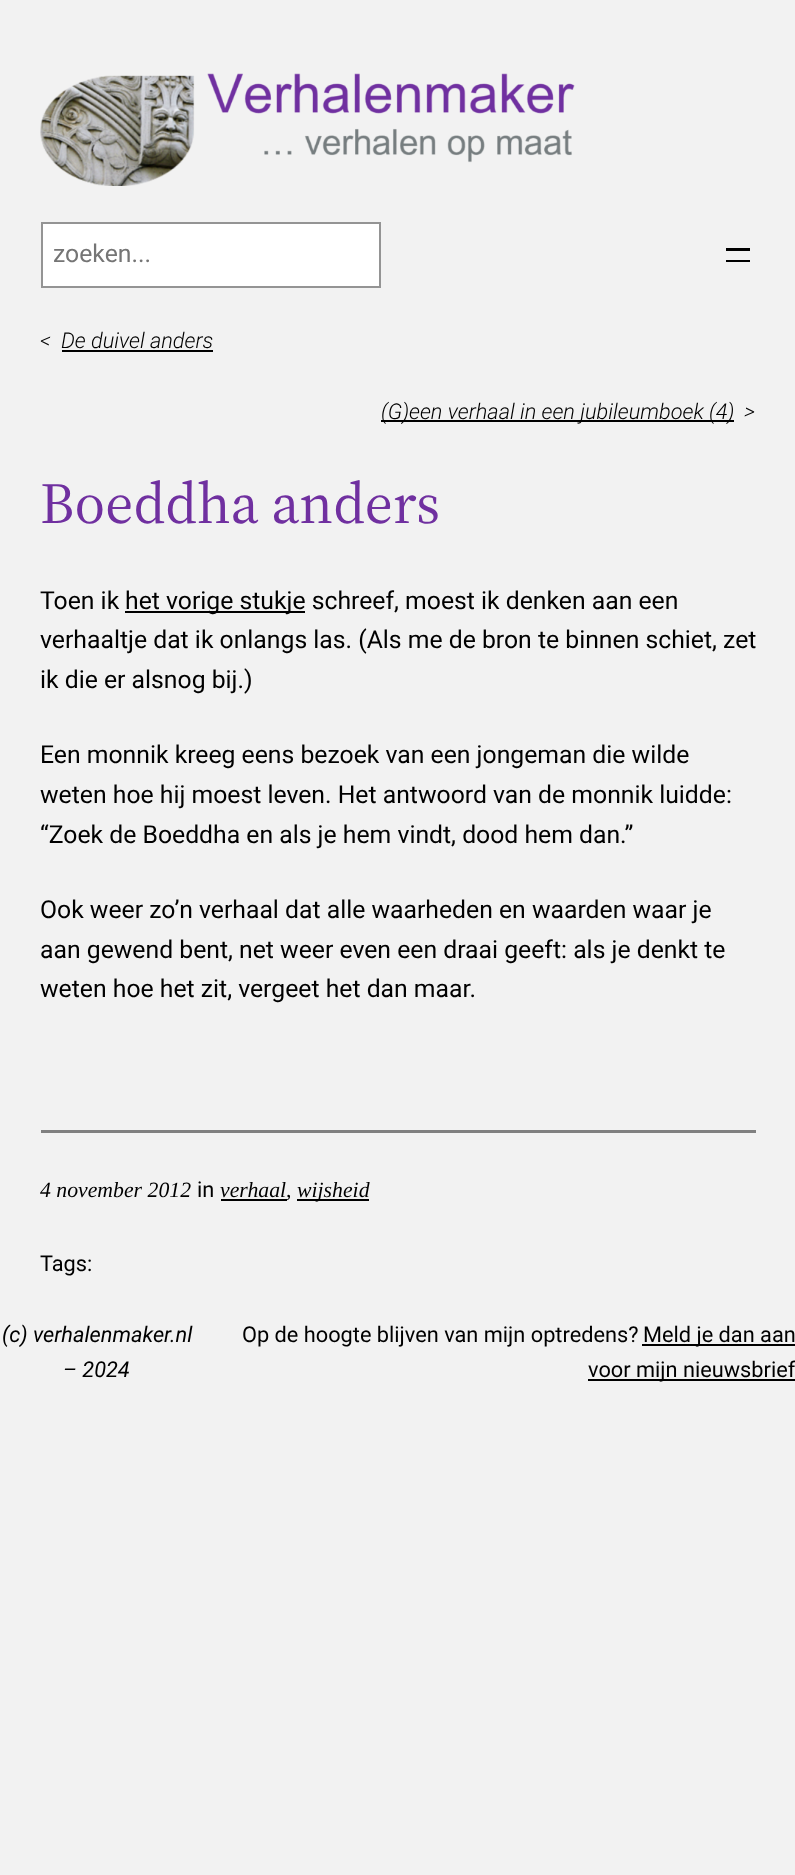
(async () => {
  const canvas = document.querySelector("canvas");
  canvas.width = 795;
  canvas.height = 1875;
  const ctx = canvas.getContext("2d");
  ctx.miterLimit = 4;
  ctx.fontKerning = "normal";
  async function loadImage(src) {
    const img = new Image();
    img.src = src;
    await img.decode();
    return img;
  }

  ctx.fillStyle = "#f2f2f2";
  ctx.fillRect(0, 0, 795, 1875);
  ctx.drawImage(await loadImage("img/1.png"), 40, 73, 535, 113);
  ctx.fillStyle = "#ffffff";
  ctx.beginPath();
  ctx.rect(42, 223, 338, 64);
  ctx.fill();
  ctx.strokeStyle = "#949494";
  ctx.lineWidth = 2;
  ctx.stroke();
  for (const [x, y, w, h, color] of [
    [726, 248, 24, 3, "#000000"],
    [726, 260, 24, 2, "#000000"],
    [62, 350, 151, 2, "#000000"],
    [381, 420, 353, 2, "#000000"],
    [125, 611, 180, 2, "#000000"],
    [41, 1130, 715, 3, "#808080"],
    [221, 1199, 66, 2, "#000000"],
    [297, 1199, 72, 2, "#000000"],
    [642, 1344, 153, 2, "#000000"],
    [588, 1379, 207, 2, "#000000"],
  ]) {
    ctx.fillStyle = color;
    ctx.fillRect(x, y, w, h);
  }
  ctx.font = "24.75px Roboto";
  ctx.fillStyle = "#757575";
  ctx.fillText("zoeken...", 53, 262);
  ctx.font = "italic 300 21.75px Roboto";
  ctx.fillStyle = "#000000";
  for (const [text, x, y] of [
    ["<", 40, 348],
    ["De duivel anders", 61, 348],
    ["(G)een verhaal in een jubileumboek (4)", 381, 419],
    [">", 744, 419],
  ]) {
    ctx.fillText(text, x, y);
  }
  ctx.font = "58px 'Source Serif 4'";
  ctx.fillStyle = "#7030a0";
  ctx.fillText("Boeddha anders", 40, 523);
  ctx.font = "24.75px Roboto";
  ctx.fillStyle = "#000000";
  for (const [text, x, y] of [
    ["Toen ik", 40, 609],
    ["het vorige stukje schreef, moest ik denken aan een", 125, 609],
    ["verhaaltje dat ik onlangs las. (Als me de bron te binnen schiet, zet", 40, 648],
    ["ik die er alsnog bij.)", 40, 688],
    ["Een monnik kreeg eens bezoek van een jongeman die wilde", 40, 763],
    ["weten hoe hij moest leven. Het antwoord van de monnik luidde:", 40, 803],
    ["“Zoek de Boeddha en als je hem vindt, dood hem dan.”", 40, 843],
    ["Ook weer zo’n verhaal dat alle waarheden en waarden waar je", 40, 918],
    ["aan gewend bent, net weer even een draai geeft: als je denkt te", 40, 958],
    ["weten hoe het zit, vergeet het dan maar.", 40, 997],
  ]) {
    ctx.fillText(text, x, y);
  }
  ctx.font = "italic 21.75px Liberation Serif";
  ctx.fillText("4 november 2012", 40, 1197);
  ctx.font = "21.75px Roboto";
  ctx.fillText("in", 197, 1197);
  ctx.font = "italic 21.75px Liberation Serif";
  ctx.fillText("verhaal,", 220, 1197);
  ctx.fillText("wijsheid", 297, 1197);
  ctx.font = "21.75px Roboto";
  ctx.fillText("Tags:", 40, 1271);
  ctx.font = "italic 21.75px Roboto";
  ctx.fillText("(c) verhalenmaker.nl", 2, 1342);
  ctx.fillText("– 2024", 63, 1377);
  ctx.font = "21.75px Roboto";
  for (const [text, x, y] of [
    ["Op de hoogte blijven van mijn optredens?", 242, 1342],
    ["Meld je dan aan", 643, 1342],
    ["voor mijn nieuwsbrief", 588, 1377],
  ]) {
    ctx.fillText(text, x, y);
  }
})();
